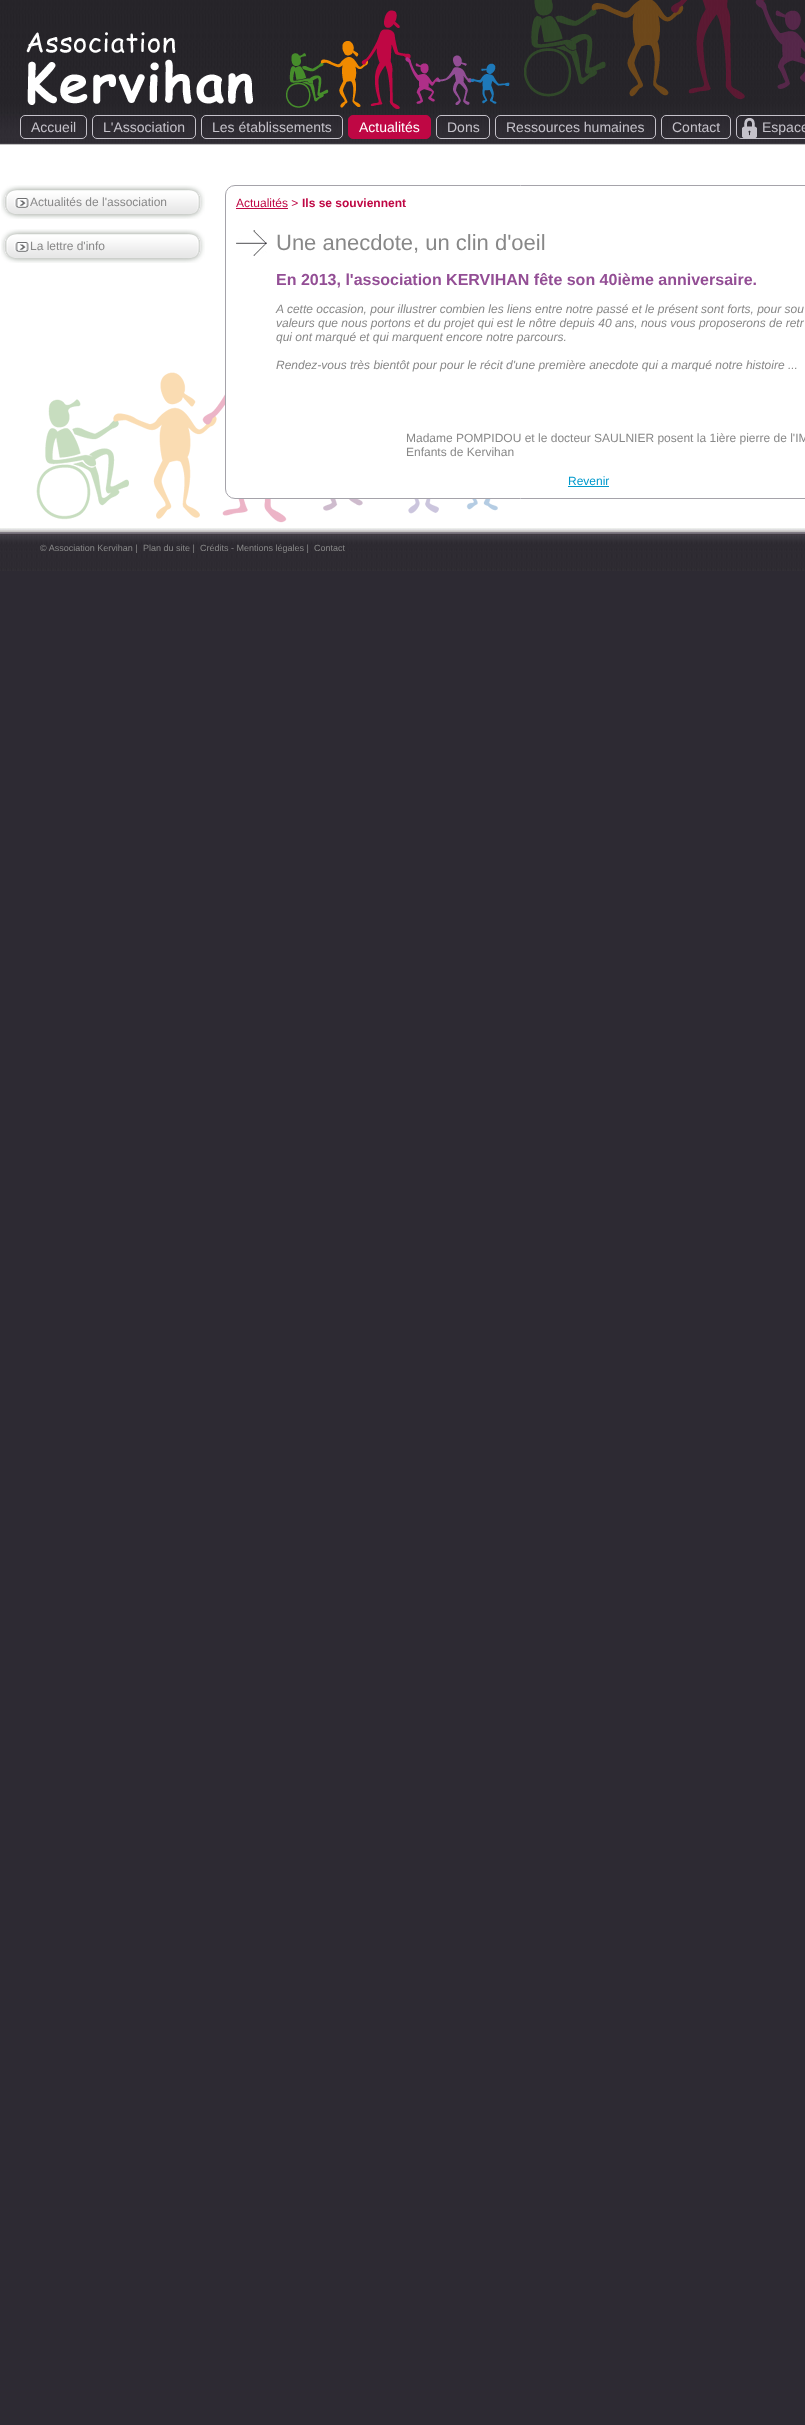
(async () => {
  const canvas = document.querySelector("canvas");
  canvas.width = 805;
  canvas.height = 2425;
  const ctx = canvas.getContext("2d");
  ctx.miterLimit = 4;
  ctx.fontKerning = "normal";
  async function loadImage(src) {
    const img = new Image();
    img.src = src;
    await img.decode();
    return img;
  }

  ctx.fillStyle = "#2d2a33";
  ctx.fillRect(0, 0, 805, 2425);
  ctx.drawImage(await loadImage("img/1.png"), 0, 0, 805, 145);
  ctx.drawImage(await loadImage("img/2.png"), 286, 0, 519, 109);
  ctx.drawImage(await loadImage("img/3.png"), 26, 32, 227, 73);
  ctx.beginPath();
  ctx.roundRect(20.5, 115.5, 66, 23, 4.5);
  ctx.strokeStyle = "#c5c2ca";
  ctx.stroke();
  ctx.beginPath();
  ctx.roundRect(92.5, 115.5, 103, 23, 4.5);
  ctx.stroke();
  ctx.beginPath();
  ctx.roundRect(201.5, 115.5, 141, 23, 4.5);
  ctx.stroke();
  ctx.fillStyle = "#bf0744";
  ctx.beginPath();
  ctx.roundRect(348.5, 115.5, 82, 23, 4.5);
  ctx.fill();
  ctx.strokeStyle = "#bf0744";
  ctx.stroke();
  ctx.beginPath();
  ctx.roundRect(436.5, 115.5, 53, 23, 4.5);
  ctx.strokeStyle = "#c5c2ca";
  ctx.stroke();
  ctx.beginPath();
  ctx.roundRect(495.5, 115.5, 160, 23, 4.5);
  ctx.stroke();
  ctx.beginPath();
  ctx.roundRect(661.5, 115.5, 69, 23, 4.5);
  ctx.stroke();
  ctx.drawImage(await loadImage("img/4.png"), 742, 118, 15, 20);
  ctx.beginPath();
  ctx.roundRect(736.5, 115.5, 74, 23, 4.5);
  ctx.stroke();
  ctx.fillStyle = "#ffffff";
  ctx.fillRect(0, 145, 805, 383);
  ctx.drawImage(await loadImage("img/5.png"), 36, 372, 462, 151);
  ctx.drawImage(await loadImage("img/6.png"), 1, 185, 204, 34);
  ctx.drawImage(await loadImage("img/6.png"), 1, 229, 204, 34);
  ctx.beginPath();
  ctx.roundRect(225.5, 185.5, 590, 313, 9.5);
  ctx.fill();
  ctx.strokeStyle = "#a5a3aa";
  ctx.stroke();
  ctx.fillStyle = "#bf0744";
  ctx.fillRect(236, 208, 52, 1);
  ctx.drawImage(await loadImage("img/7.png"), 236, 230, 31, 26);
  ctx.fillStyle = "#0099cc";
  ctx.fillRect(568, 486, 41, 1);
  ctx.drawImage(await loadImage("img/8.png"), 0, 528, 805, 43);
  ctx.font = "14px Liberation Sans";
  ctx.fillStyle = "#c5c2ca";
  for (const [text, x, y] of [
    ["Accueil", 31, 132],
    ["L'Association", 103, 132],
    ["Les établissements", 212, 132],
  ]) {
    ctx.fillText(text, x, y);
  }
  ctx.fillStyle = "#ffffff";
  ctx.fillText("Actualités", 359, 132);
  ctx.fillStyle = "#c5c2ca";
  for (const [text, x, y] of [
    ["Dons", 447, 132],
    ["Ressources humaines", 506, 132],
    ["Contact", 672, 132],
    ["Espace", 762, 132],
  ]) {
    ctx.fillText(text, x, y);
  }
  ctx.font = "12px Liberation Sans";
  ctx.fillStyle = "#888888";
  ctx.fillText("Actualités de l'association", 30, 206);
  ctx.fillText("La lettre d'info", 30, 250);
  ctx.fillStyle = "#bf0744";
  ctx.fillText("Actualités >", 236, 207);
  ctx.font = "bold 12px Liberation Sans";
  ctx.fillText("Ils se souviennent", 302, 207);
  ctx.font = "22px Liberation Sans";
  ctx.fillStyle = "#888888";
  ctx.fillText("Une anecdote, un clin d'oeil", 276, 250);
  ctx.font = "bold 16px Liberation Sans";
  ctx.fillStyle = "#934e95";
  ctx.fillText("En 2013, l'association KERVIHAN fête son 40ième anniversaire.", 276, 285);
  ctx.font = "italic 12px Liberation Sans";
  ctx.fillStyle = "#888888";
  for (const [text, x, y] of [
    ["A cette occasion, pour illustrer combien les liens entre notre passé et le présent sont forts, pour sou", 276, 313],
    ["valeurs que nous portons et du projet qui est le nôtre depuis 40 ans, nous vous proposerons de retr", 276, 327],
    ["qui ont marqué et qui marquent encore notre parcours.", 276, 341],
    ["Rendez-vous très bientôt pour pour le récit d'une première anecdote qui a marqué notre histoire ...", 276, 369],
  ]) {
    ctx.fillText(text, x, y);
  }
  ctx.font = "12px Liberation Sans";
  ctx.fillText("Madame POMPIDOU et le docteur SAULNIER posent la 1ière pierre de l'IM", 406, 442);
  ctx.fillText("Enfants de Kervihan", 406, 456);
  ctx.fillStyle = "#0099cc";
  ctx.fillText("Revenir", 568, 485);
  ctx.font = "9px Liberation Sans";
  ctx.fillStyle = "#888888";
  for (const [text, x, y] of [
    ["© Association Kervihan |", 40, 551],
    ["Plan du site |", 143, 551],
    ["Crédits - Mentions légales |", 200, 551],
    ["Contact", 314, 551],
  ]) {
    ctx.fillText(text, x, y);
  }
})();
